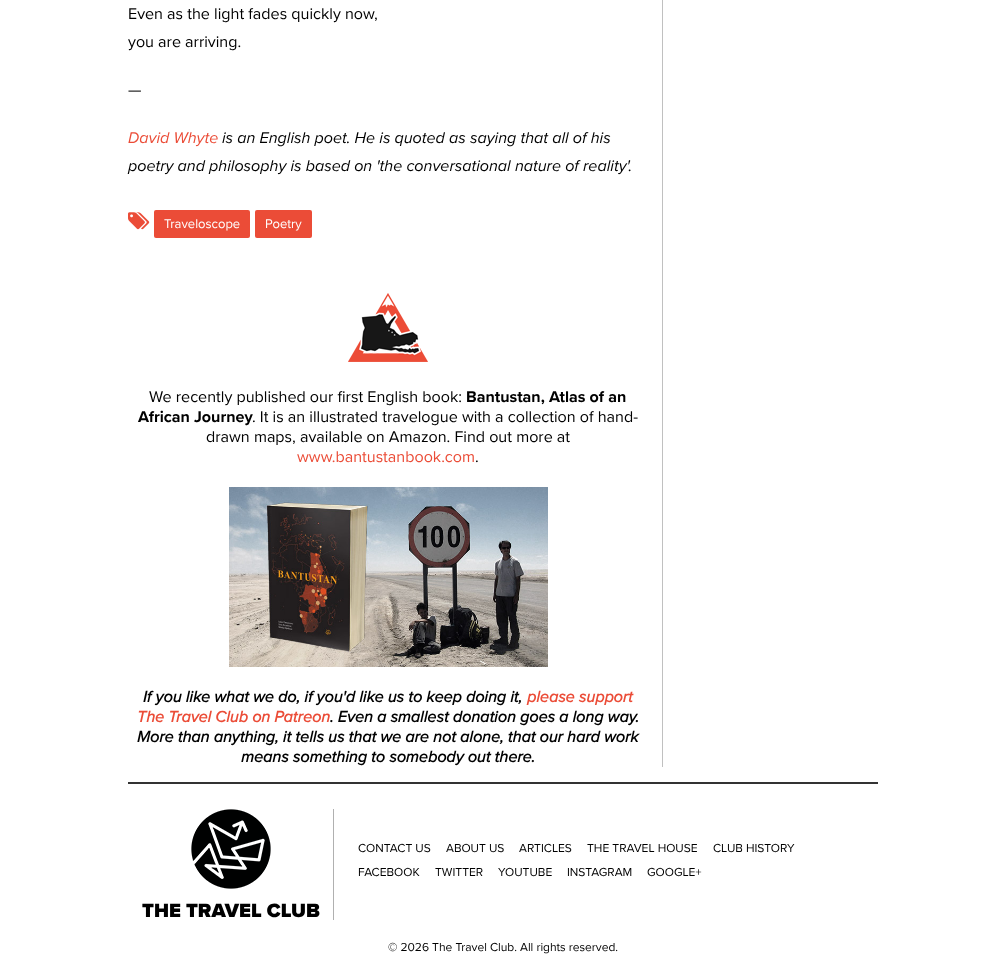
(async () => {
  const canvas = document.querySelector("canvas");
  canvas.width = 1006;
  canvas.height = 969;
  const ctx = canvas.getContext("2d");
  ctx.miterLimit = 4;
  ctx.fontKerning = "normal";
  async function loadImage(src) {
    const img = new Image();
    img.src = src;
    await img.decode();
    return img;
  }

  ctx.fillStyle = "#ffffff";
  ctx.fillRect(0, 0, 1006, 969);
  ctx.fillStyle = "#c0c0c0";
  ctx.fillRect(662, 0, 1, 767);
  ctx.drawImage(await loadImage("img/1.png"), 128, 212, 22, 18);
  ctx.fillStyle = "#eb4c37";
  ctx.beginPath();
  ctx.roundRect(154, 210, 96, 28, 2);
  ctx.fill();
  ctx.beginPath();
  ctx.roundRect(255, 210, 57, 28, 2);
  ctx.fill();
  ctx.drawImage(await loadImage("img/2.png"), 348, 293, 80, 69);
  ctx.drawImage(await loadImage("img/3.png"), 229, 487, 319, 180);
  ctx.fillStyle = "#333333";
  ctx.fillRect(128, 782, 750, 2);
  ctx.drawImage(await loadImage("img/4.png"), 191, 809, 80, 80);
  ctx.fillStyle = "#b0b0b0";
  ctx.fillRect(333, 809, 1, 111);
  ctx.font = "16.1px Proxima Nova";
  ctx.fillStyle = "#000000";
  for (const [text, x, y] of [
    ["Even as the light fades quickly now,", 128, 19],
    ["you are arriving.", 128, 47],
    ["—", 128, 95],
  ]) {
    ctx.fillText(text, x, y);
  }
  ctx.font = "italic 16.1px Proxima Nova";
  ctx.fillStyle = "#eb4c37";
  ctx.fillText("David Whyte", 128, 143);
  ctx.fillStyle = "#000000";
  ctx.fillText("is an English poet. He is quoted as saying that all of his", 222, 143);
  ctx.fillText("poetry and philosophy is based on 'the conversational nature of reality'.", 128, 171);
  ctx.font = "13px Proxima Nova";
  ctx.fillStyle = "#ffffff";
  ctx.fillText("Traveloscope", 164, 228);
  ctx.fillText("Poetry", 265, 228);
  ctx.font = "16.1px Proxima Nova";
  ctx.fillStyle = "#000000";
  ctx.fillText("We recently published our first English book:", 149, 402);
  ctx.font = "bold 16.1px Proxima Nova";
  ctx.fillText("Bantustan, Atlas of an", 466, 402);
  ctx.fillText("African Journey", 138, 422);
  ctx.font = "16.1px Proxima Nova";
  ctx.fillText(". It is an illustrated travelogue with a collection of hand-", 252, 422);
  ctx.fillText("drawn maps, available on Amazon. Find out more at", 206, 442);
  ctx.fillStyle = "#eb4c37";
  ctx.fillText("www.bantustanbook.com", 297, 462);
  ctx.fillStyle = "#000000";
  ctx.fillText(".", 475, 462);
  ctx.font = "italic bold 16.1px Proxima Nova";
  ctx.fillText("If you like what we do, if you'd like us to keep doing it,", 143, 702);
  ctx.fillStyle = "#eb4c37";
  ctx.fillText("please support", 527, 702);
  ctx.fillText("The Travel Club on Patreon", 137, 722);
  ctx.fillStyle = "#000000";
  for (const [text, x, y] of [
    [". Even a smallest donation goes a long way.", 330, 722],
    ["More than anything, it tells us that we are not alone, that our hard work", 137, 742],
    ["means something to somebody out there.", 241, 762],
  ]) {
    ctx.fillText(text, x, y);
  }
  ctx.font = "12px Proxima Nova";
  for (const [text, x, y] of [
    ["CONTACT US", 358, 852],
    ["ABOUT US", 446, 852],
    ["ARTICLES", 519, 852],
    ["THE TRAVEL HOUSE", 587, 852],
    ["CLUB HISTORY", 713, 852],
    ["FACEBOOK", 358, 876],
    ["TWITTER", 435, 876],
    ["YOUTUBE", 498, 876],
    ["INSTAGRAM", 567, 876],
    ["GOOGLE+", 647, 876],
  ]) {
    ctx.fillText(text, x, y);
  }
  ctx.font = "900 20px Proxima Nova";
  ctx.fillText("THE TRAVEL CLUB", 142, 917);
  ctx.font = "12px Proxima Nova";
  ctx.fillText("© 2026 The Travel Club. All rights reserved.", 388, 951);
})();
